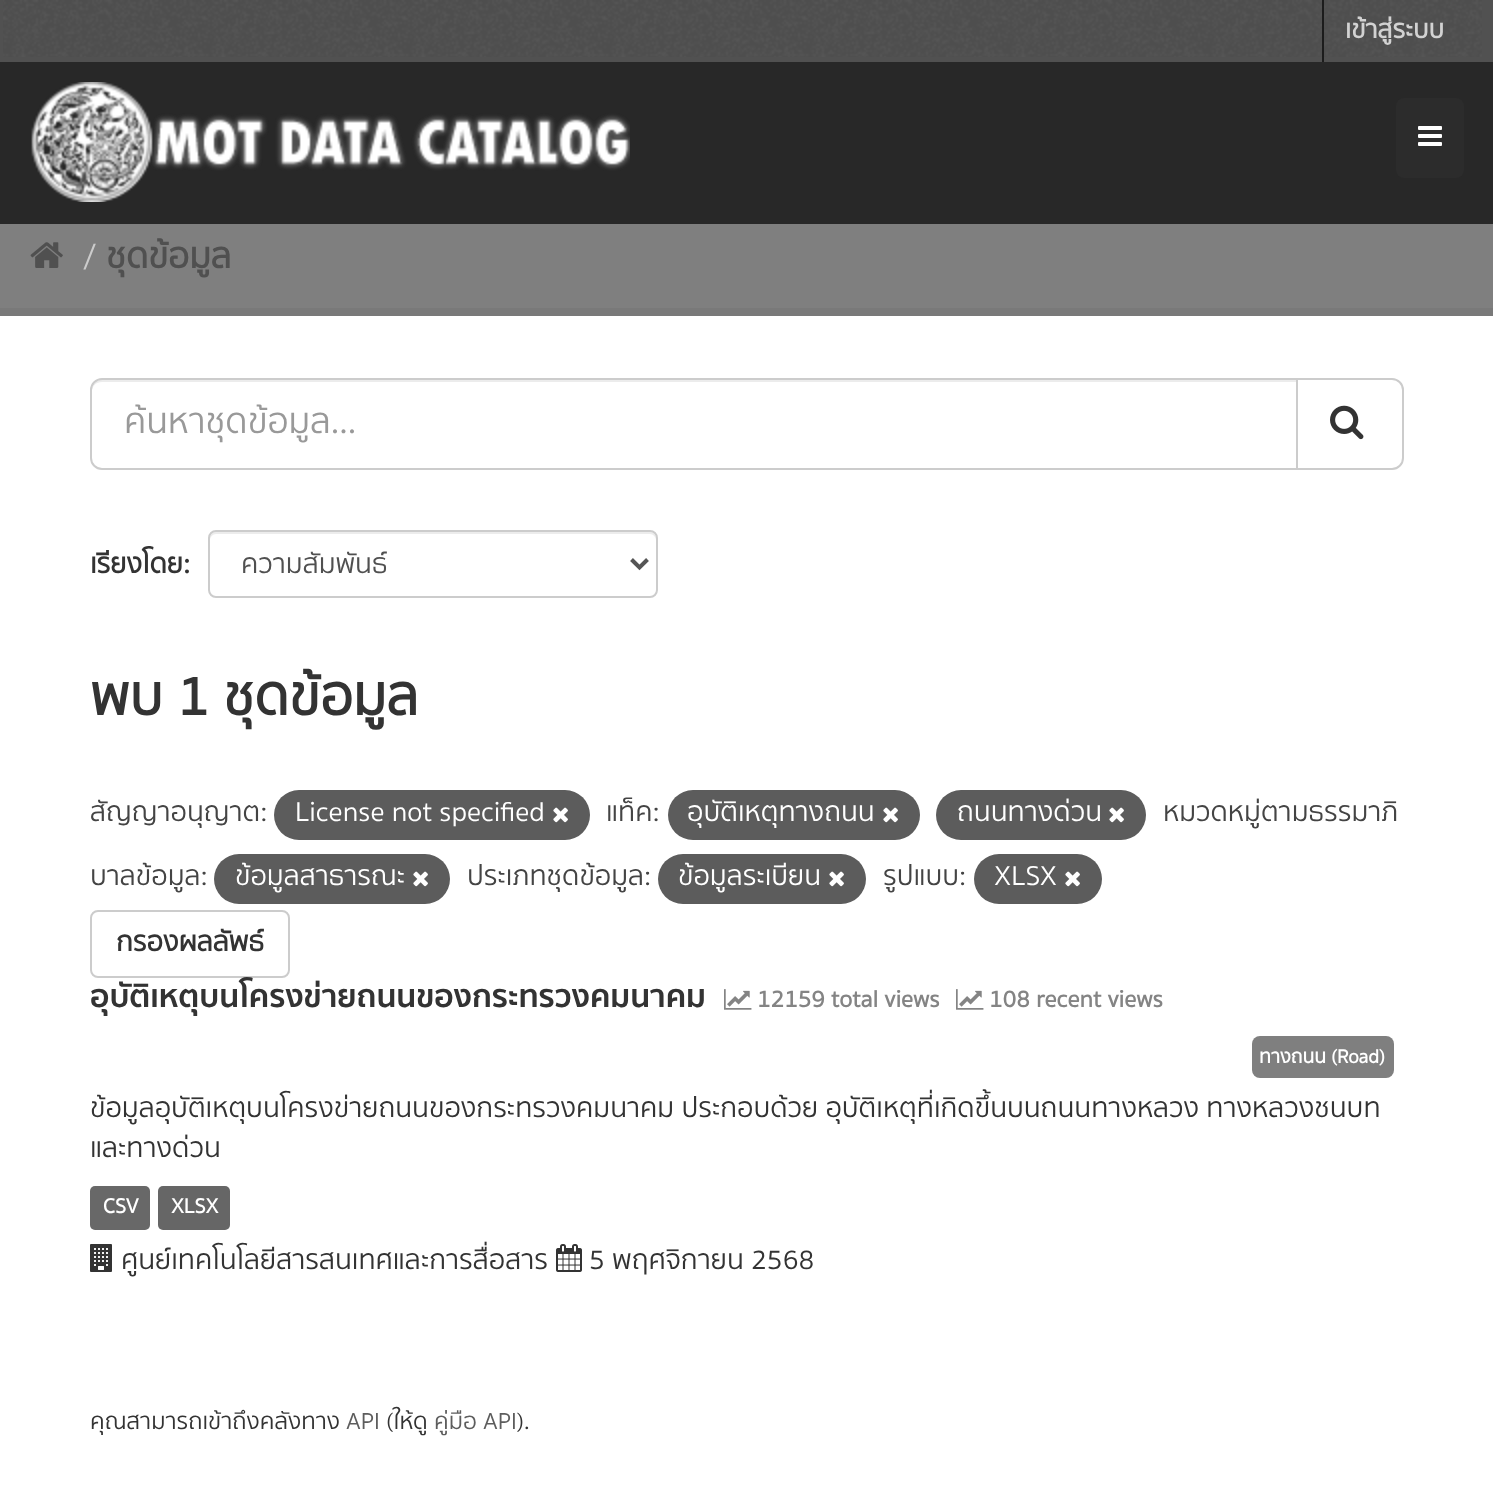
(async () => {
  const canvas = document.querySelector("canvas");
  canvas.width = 1493;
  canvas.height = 1490;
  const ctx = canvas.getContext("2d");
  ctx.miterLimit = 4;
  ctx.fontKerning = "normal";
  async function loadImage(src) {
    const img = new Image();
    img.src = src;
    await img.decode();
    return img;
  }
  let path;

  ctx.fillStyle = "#7f7f7f";
  ctx.fillRect(0, 0, 1493, 1490);
  ctx.fillStyle = "#515151";
  ctx.fillRect(0, 0, 1493, 62);
  ctx.drawImage(await loadImage("img/1.png"), 3, 0, 1479, 57);
  ctx.fillStyle = "#1c1c1c";
  ctx.fillRect(1322, 0, 2, 62);
  ctx.fillStyle = "#282828";
  ctx.fillRect(0, 62, 1493, 162);
  ctx.drawImage(await loadImage("img/2.png"), 31, 82, 599, 120);
  ctx.fillStyle = "#2c2c2c";
  ctx.beginPath();
  ctx.roundRect(1396, 98, 68, 80, 8);
  ctx.fill();
  ctx.drawImage(await loadImage("img/3.png"), 1418, 126, 24, 20);
  ctx.drawImage(await loadImage("img/4.png"), 30, 242, 33, 26);
  ctx.strokeStyle = "#797979";
  ctx.lineWidth = 8;
  ctx.strokeRect(-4, 312, 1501, 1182);
  ctx.fillStyle = "#ffffff";
  ctx.fillRect(0, 316, 1493, 1174);
  ctx.fillStyle = "#ececec";
  path = new Path2D("M102 382H1296V380H102C95 380 92 386 92 392C92 386 96 382 102 382Z");
  ctx.fill(path);
  ctx.beginPath();
  ctx.roundRect(91, 379, 1206, 90, [11, 0, 0, 11]);
  ctx.strokeStyle = "#cccccc";
  ctx.lineWidth = 2;
  ctx.stroke();
  ctx.fillStyle = "#ffffff";
  ctx.beginPath();
  ctx.roundRect(1297, 379, 106, 90, [0, 11, 11, 0]);
  ctx.fill();
  ctx.stroke();
  ctx.drawImage(await loadImage("img/5.png"), 1330, 405, 34, 35);
  ctx.fillStyle = "#ececec";
  path = new Path2D("M216 534H650C653 534 656 537 656 540V538C656 535 653 532 650 532H216C213 532 210 535 210 538V540C210 537 213 534 216 534Z");
  ctx.fill(path);
  ctx.beginPath();
  ctx.roundRect(209, 531, 448, 66, 7);
  ctx.stroke();
  path = new Path2D("M631.5 559.5L639.5 567.5L647.5 559.5");
  ctx.strokeStyle = "#555555";
  ctx.lineWidth = 4;
  ctx.stroke(path);
  ctx.fillStyle = "#5c5c5c";
  ctx.beginPath();
  ctx.roundRect(274, 790, 316, 50, 25);
  ctx.fill();
  ctx.drawImage(await loadImage("img/6.png"), 553, 807, 15, 16);
  ctx.beginPath();
  ctx.roundRect(668, 790, 252, 50, 25);
  ctx.fill();
  ctx.drawImage(await loadImage("img/6.png"), 883, 807, 15, 16);
  ctx.beginPath();
  ctx.roundRect(936, 790, 210, 50, 25);
  ctx.fill();
  ctx.drawImage(await loadImage("img/6.png"), 1109, 807, 15, 16);
  ctx.beginPath();
  ctx.roundRect(214, 854, 236, 50, 25);
  ctx.fill();
  ctx.drawImage(await loadImage("img/6.png"), 413, 871, 15, 16);
  ctx.beginPath();
  ctx.roundRect(658, 854, 208, 50, 25);
  ctx.fill();
  ctx.drawImage(await loadImage("img/6.png"), 829, 871, 15, 16);
  ctx.beginPath();
  ctx.roundRect(974, 854, 128, 50, 25);
  ctx.fill();
  ctx.drawImage(await loadImage("img/6.png"), 1065, 871, 15, 16);
  ctx.beginPath();
  ctx.roundRect(91, 911, 198, 66, 7);
  ctx.strokeStyle = "#cccccc";
  ctx.lineWidth = 2;
  ctx.stroke();
  ctx.drawImage(await loadImage("img/7.png"), 724, 989, 28, 21);
  ctx.drawImage(await loadImage("img/7.png"), 956, 989, 28, 21);
  ctx.fillStyle = "#7f7f7f";
  ctx.beginPath();
  ctx.roundRect(1252, 1036, 142, 42, 8);
  ctx.fill();
  ctx.fillStyle = "#686868";
  ctx.beginPath();
  ctx.roundRect(90, 1186, 60, 44, 5);
  ctx.fill();
  ctx.fillStyle = "#666666";
  ctx.beginPath();
  ctx.roundRect(158, 1186, 72, 44, 5);
  ctx.fill();
  ctx.drawImage(await loadImage("img/8.png"), 90, 1244, 22, 28);
  ctx.drawImage(await loadImage("img/9.png"), 556, 1244, 26, 28);
  ctx.font = "bold 26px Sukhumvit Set";
  ctx.fillStyle = "#d2d2d2";
  ctx.fillText("เข้าสู่ระบบ", 1345, 38);
  ctx.font = "36px Sukhumvit Set";
  ctx.fillStyle = "#cccccc";
  ctx.fillText("/", 83, 268);
  ctx.font = "bold 36px Sukhumvit Set";
  ctx.fillStyle = "#505050";
  ctx.fillText("ชุดข้อมูล", 106, 268);
  ctx.save();
  ctx.beginPath();
  ctx.rect(124, 398, 1140, 52);
  ctx.clip();
  ctx.font = "36px Sukhumvit Set";
  ctx.fillStyle = "#999999";
  ctx.fillText("ค้นหาชุดข้อมูล...", 124, 433);
  ctx.restore();
  ctx.font = "bold 28px Sukhumvit Set";
  ctx.fillStyle = "#333333";
  ctx.fillText("เรียงโดย:", 90, 573);
  ctx.font = "28px Sukhumvit Set";
  ctx.fillStyle = "#505050";
  ctx.fillText("ความสัมพันธ์", 241, 573);
  ctx.font = "bold 56px Sukhumvit Set";
  ctx.fillStyle = "#333333";
  ctx.fillText("พบ 1 ชุดข้อมูล", 90, 715);
  ctx.font = "28px Sukhumvit Set";
  ctx.fillStyle = "#444444";
  ctx.fillText("สัญญาอนุญาต:", 90, 821);
  ctx.fillStyle = "#ffffff";
  ctx.fillText("License not specified", 295, 821);
  ctx.fillStyle = "#444444";
  ctx.fillText("แท็ค:", 606, 821);
  ctx.fillStyle = "#ffffff";
  ctx.fillText("อุบัติเหตุทางถนน", 687, 821);
  ctx.fillText("ถนนทางด่วน", 957, 821);
  ctx.fillStyle = "#444444";
  ctx.fillText("หมวดหมู่ตามธรรมาภิ", 1163, 821);
  ctx.fillText("บาลข้อมูล:", 90, 885);
  ctx.fillStyle = "#ffffff";
  ctx.fillText("ข้อมูลสาธารณะ", 235, 885);
  ctx.fillStyle = "#444444";
  ctx.fillText("ประเภทชุดข้อมูล:", 467, 885);
  ctx.fillStyle = "#ffffff";
  ctx.fillText("ข้อมูลระเบียน", 678, 885);
  ctx.fillStyle = "#444444";
  ctx.fillText("รูปแบบ:", 883, 885);
  ctx.fillStyle = "#ffffff";
  ctx.fillText("XLSX", 994, 885);
  ctx.font = "bold 28px Sukhumvit Set";
  ctx.fillStyle = "#333333";
  ctx.fillText("กรองผลลัพธ์", 116, 951);
  ctx.font = "bold 32px 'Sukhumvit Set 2'";
  ctx.fillText("อุบัติเหตุบนโครงข่ายถนนของกระทรวงคมนาคม", 90, 1007);
  ctx.font = "bold 24px Sukhumvit Set";
  ctx.fillStyle = "#848484";
  ctx.fillText("12159 total views", 757, 1007);
  ctx.fillText("108 recent views", 989, 1007);
  ctx.font = "bold 19.5px Sukhumvit Set";
  ctx.fillStyle = "#ffffff";
  ctx.fillText("ทางถนน (Road)", 1259, 1063);
  ctx.font = "28px Sukhumvit Set";
  ctx.fillStyle = "#333333";
  ctx.fillText("ข้อมูลอุบัติเหตุบนโครงข่ายถนนของกระทรวงคมนาคม ประกอบด้วย อุบัติเหตุที่เกิดขึ้นบนถนนทางหลวง ทางหลวงชนบท", 90, 1117);
  ctx.fillText("และทางด่วน", 90, 1157);
  ctx.font = "bold 21px Sukhumvit Set";
  ctx.fillStyle = "#ffffff";
  ctx.fillText("CSV", 103, 1213);
  ctx.fillText("XLSX", 171, 1213);
  ctx.font = "28px Sukhumvit Set";
  ctx.fillStyle = "#333333";
  ctx.fillText("ศูนย์เทคโนโลยีสารสนเทศและการสื่อสาร", 121, 1269);
  ctx.fillText("5 พฤศจิกายน 2568", 589, 1269);
  ctx.font = "23.75px Sukhumvit Set";
  ctx.fillText("คุณสามารถเข้าถึงคลังทาง", 90, 1429);
  ctx.fillStyle = "#5d5d5d";
  ctx.fillText("API", 346, 1429);
  ctx.fillStyle = "#333333";
  ctx.fillText("(ให้ดู", 386, 1429);
  ctx.fillStyle = "#5d5d5d";
  ctx.fillText("คู่มือ API", 434, 1429);
  ctx.fillStyle = "#333333";
  ctx.fillText(").", 517, 1429);
})();
